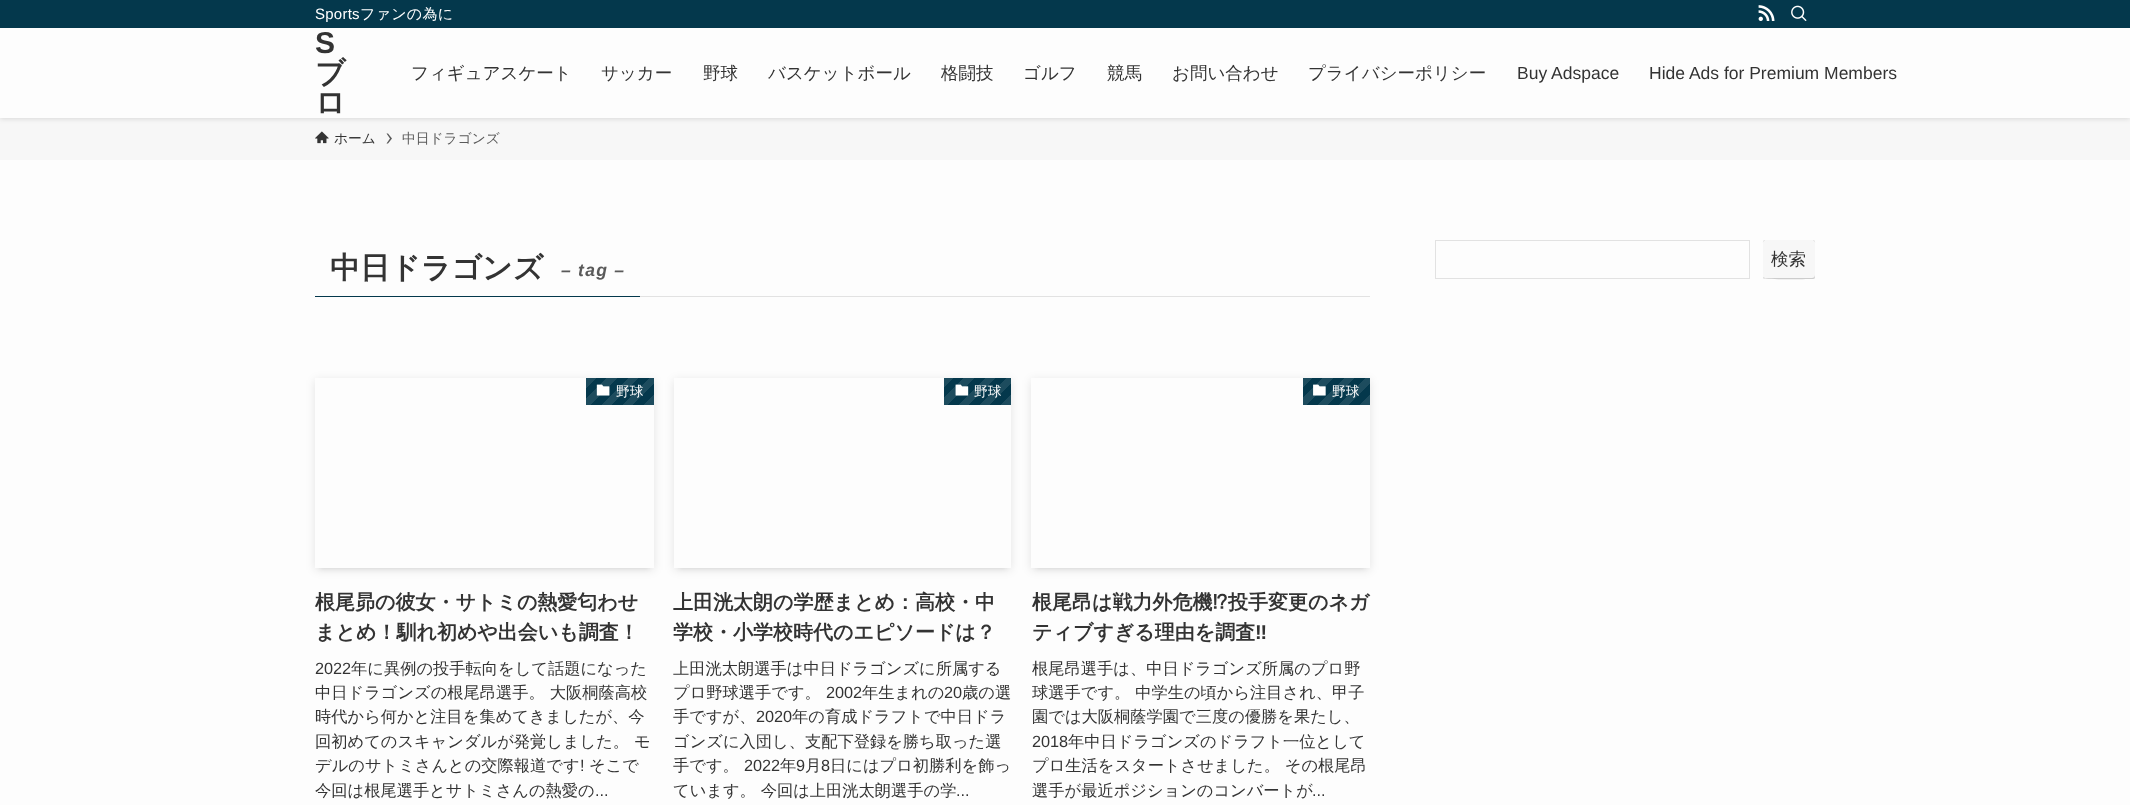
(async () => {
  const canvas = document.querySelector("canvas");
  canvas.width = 2130;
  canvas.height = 805;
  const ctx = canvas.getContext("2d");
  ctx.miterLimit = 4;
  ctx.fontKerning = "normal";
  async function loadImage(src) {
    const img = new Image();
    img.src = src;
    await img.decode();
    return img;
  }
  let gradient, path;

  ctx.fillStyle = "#fdfdfd";
  ctx.fillRect(0, 0, 2130, 805);
  ctx.fillStyle = "#f7f7f7";
  ctx.fillRect(0, 118, 2130, 42);
  ctx.fillStyle = "rgba(0, 0, 0, 0.12)";
  ctx.filter = "blur(2.5px)";
  ctx.beginPath();
  ctx.rect(0, 1, 2130, 118);
  ctx.fill();
  ctx.filter = "none";
  ctx.fillStyle = "#fdfdfd";
  ctx.fillRect(0, 28, 2130, 90);
  ctx.fillStyle = "#04384c";
  ctx.fillRect(0, 0, 2130, 28);
  ctx.drawImage(await loadImage("img/1.png"), 1758, 5, 17, 16);
  ctx.drawImage(await loadImage("img/2.png"), 1791, 5, 16, 16);
  ctx.drawImage(await loadImage("img/3.png"), 315, 131, 14, 13);
  ctx.fillStyle = "#5a5a5a";
  path = new Path2D("M388 133.5H386.5L390 138.5L386.5 143.5H388L392 138.5Z");
  ctx.fill(path);
  ctx.fillStyle = "#e2e2e2";
  ctx.fillRect(640, 296, 730, 1);
  ctx.fillStyle = "#04384c";
  ctx.fillRect(315, 296, 325, 1);
  ctx.save();
  path = new Path2D("M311 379H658V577H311ZM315 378H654V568H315Z");
  ctx.clip(path, "evenodd");
  ctx.fillStyle = "rgba(0, 0, 0, 0.1)";
  ctx.filter = "blur(2.5px)";
  ctx.beginPath();
  ctx.rect(320, 388, 329, 180);
  ctx.fill();
  ctx.filter = "none";
  ctx.restore();
  ctx.save();
  path = new Path2D("M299 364H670V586H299ZM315 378H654V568H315Z");
  ctx.clip(path, "evenodd");
  ctx.fillStyle = "rgba(0, 0, 0, 0.1)";
  ctx.filter = "blur(5px)";
  ctx.beginPath();
  ctx.rect(315, 380, 339, 190);
  ctx.fill();
  ctx.filter = "none";
  ctx.restore();
  gradient = ctx.createLinearGradient(644, 415, 591, 362);
  gradient.addColorStop(0, "#1d4c5e");
  gradient.addColorStop(0.1, "#1d4c5e");
  gradient.addColorStop(0.1, "#04384c");
  gradient.addColorStop(0.2, "#04384c");
  gradient.addColorStop(0.2, "#1d4c5e");
  gradient.addColorStop(0.3, "#1d4c5e");
  gradient.addColorStop(0.3, "#04384c");
  gradient.addColorStop(0.4, "#04384c");
  gradient.addColorStop(0.4, "#1d4c5e");
  gradient.addColorStop(0.5, "#1d4c5e");
  gradient.addColorStop(0.5, "#04384c");
  gradient.addColorStop(0.6, "#04384c");
  gradient.addColorStop(0.6, "#1d4c5e");
  gradient.addColorStop(0.7, "#1d4c5e");
  gradient.addColorStop(0.7, "#04384c");
  gradient.addColorStop(0.8, "#04384c");
  gradient.addColorStop(0.8, "#1d4c5e");
  gradient.addColorStop(0.9, "#1d4c5e");
  gradient.addColorStop(0.9, "#04384c");
  gradient.addColorStop(1, "#04384c");
  ctx.fillStyle = gradient;
  ctx.fillRect(586, 378, 68, 27);
  ctx.drawImage(await loadImage("img/4.png"), 596, 384, 14, 12);
  ctx.save();
  path = new Path2D("M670 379H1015V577H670ZM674 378H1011V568H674Z");
  ctx.clip(path, "evenodd");
  ctx.fillStyle = "rgba(0, 0, 0, 0.1)";
  ctx.filter = "blur(2.5px)";
  ctx.beginPath();
  ctx.rect(679, 388, 327, 180);
  ctx.fill();
  ctx.filter = "none";
  ctx.restore();
  ctx.save();
  path = new Path2D("M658 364H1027V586H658ZM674 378H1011V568H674Z");
  ctx.clip(path, "evenodd");
  ctx.fillStyle = "rgba(0, 0, 0, 0.1)";
  ctx.filter = "blur(5px)";
  ctx.beginPath();
  ctx.rect(674, 380, 337, 190);
  ctx.fill();
  ctx.filter = "none";
  ctx.restore();
  gradient = ctx.createLinearGradient(1001, 415, 948, 362);
  gradient.addColorStop(0, "#1d4c5e");
  gradient.addColorStop(0.1, "#1d4c5e");
  gradient.addColorStop(0.1, "#04384c");
  gradient.addColorStop(0.2, "#04384c");
  gradient.addColorStop(0.2, "#1d4c5e");
  gradient.addColorStop(0.3, "#1d4c5e");
  gradient.addColorStop(0.3, "#04384c");
  gradient.addColorStop(0.4, "#04384c");
  gradient.addColorStop(0.4, "#1d4c5e");
  gradient.addColorStop(0.5, "#1d4c5e");
  gradient.addColorStop(0.5, "#04384c");
  gradient.addColorStop(0.6, "#04384c");
  gradient.addColorStop(0.6, "#1d4c5e");
  gradient.addColorStop(0.7, "#1d4c5e");
  gradient.addColorStop(0.7, "#04384c");
  gradient.addColorStop(0.8, "#04384c");
  gradient.addColorStop(0.8, "#1d4c5e");
  gradient.addColorStop(0.9, "#1d4c5e");
  gradient.addColorStop(0.9, "#04384c");
  gradient.addColorStop(1, "#04384c");
  ctx.fillStyle = gradient;
  ctx.fillRect(944, 378, 67, 27);
  ctx.drawImage(await loadImage("img/5.png"), 955, 384, 14, 12);
  ctx.save();
  path = new Path2D("M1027 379H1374V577H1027ZM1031 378H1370V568H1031Z");
  ctx.clip(path, "evenodd");
  ctx.fillStyle = "rgba(0, 0, 0, 0.1)";
  ctx.filter = "blur(2.5px)";
  ctx.beginPath();
  ctx.rect(1036, 388, 329, 180);
  ctx.fill();
  ctx.filter = "none";
  ctx.restore();
  ctx.save();
  path = new Path2D("M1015 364H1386V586H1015ZM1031 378H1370V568H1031Z");
  ctx.clip(path, "evenodd");
  ctx.fillStyle = "rgba(0, 0, 0, 0.1)";
  ctx.filter = "blur(5px)";
  ctx.beginPath();
  ctx.rect(1031, 380, 339, 190);
  ctx.fill();
  ctx.filter = "none";
  ctx.restore();
  gradient = ctx.createLinearGradient(1360, 415, 1307, 362);
  gradient.addColorStop(0, "#1d4c5e");
  gradient.addColorStop(0.1, "#1d4c5e");
  gradient.addColorStop(0.1, "#04384c");
  gradient.addColorStop(0.2, "#04384c");
  gradient.addColorStop(0.2, "#1d4c5e");
  gradient.addColorStop(0.3, "#1d4c5e");
  gradient.addColorStop(0.3, "#04384c");
  gradient.addColorStop(0.4, "#04384c");
  gradient.addColorStop(0.4, "#1d4c5e");
  gradient.addColorStop(0.5, "#1d4c5e");
  gradient.addColorStop(0.5, "#04384c");
  gradient.addColorStop(0.6, "#04384c");
  gradient.addColorStop(0.6, "#1d4c5e");
  gradient.addColorStop(0.7, "#1d4c5e");
  gradient.addColorStop(0.7, "#04384c");
  gradient.addColorStop(0.8, "#04384c");
  gradient.addColorStop(0.8, "#1d4c5e");
  gradient.addColorStop(0.9, "#1d4c5e");
  gradient.addColorStop(0.9, "#04384c");
  gradient.addColorStop(1, "#04384c");
  ctx.fillStyle = gradient;
  ctx.fillRect(1303, 378, 67, 27);
  ctx.drawImage(await loadImage("img/6.png"), 1313, 384, 13, 12);
  ctx.strokeStyle = "#e2e2e2";
  ctx.strokeRect(1435.5, 240.5, 314, 38);
  ctx.fillStyle = "#aaaaaa";
  ctx.filter = "blur(0.5px)";
  ctx.beginPath();
  ctx.roundRect(1763, 240, 52, 39, 2.5);
  ctx.fill();
  ctx.filter = "none";
  ctx.fillStyle = "#f7f7f7";
  ctx.beginPath();
  ctx.roundRect(1763, 240, 52, 39, 2.5);
  ctx.fill();
  ctx.fillStyle = "#cccccc";
  path = new Path2D("M1763 277L1764 278C1765 280 1807 279 1812 279C1815 279 1815 277 1815 275C1815 276 1814 278 1812 278H1765Z");
  ctx.fill(path);
  ctx.letterSpacing = "0.25px";
  ctx.font = "15px Liberation Sans";
  ctx.fillStyle = "#ffffff";
  ctx.fillText("Sports", 315, 19);
  ctx.font = "500 15px WenQuanYi Zen Hei";
  ctx.fillText("ファンの為に", 360, 19);
  ctx.letterSpacing = "0px";
  ctx.font = "bold 30px Liberation Sans";
  ctx.fillStyle = "#333333";
  ctx.fillText("S", 315, 53);
  ctx.font = "bold 30px WenQuanYi Zen Hei";
  ctx.fillText("ブ", 315, 83);
  ctx.fillText("ロ", 315, 113);
  ctx.font = "500 17.5px WenQuanYi Zen Hei";
  for (const [text, x, y] of [
    ["フィギュアスケート", 411, 79],
    ["サッカー", 601, 79],
    ["野球", 703, 79],
    ["バスケットボール", 768, 79],
    ["格闘技", 941, 79],
    ["ゴルフ", 1023, 79],
    ["競馬", 1107, 79],
    ["お問い合わせ", 1172, 79],
    ["プライバシーポリシー", 1308, 79],
  ]) {
    ctx.fillText(text, x, y);
  }
  ctx.font = "17.5px Liberation Sans";
  ctx.fillText("Buy Adspace", 1517, 79);
  ctx.fillText("Hide Ads for Premium Members", 1649, 79);
  ctx.font = "500 13.75px WenQuanYi Zen Hei";
  ctx.fillText("ホーム", 334, 143);
  ctx.fillStyle = "#5a5a5a";
  ctx.fillText("中日ドラゴンズ", 402, 143);
  ctx.font = "bold 30px WenQuanYi Zen Hei";
  ctx.fillStyle = "#333333";
  ctx.fillText("中日ドラゴンズ", 330, 278);
  ctx.letterSpacing = "1.25px";
  ctx.font = "italic bold 17.5px Liberation Sans";
  ctx.fillStyle = "#5a5a5a";
  ctx.fillText("– tag –", 561, 276);
  ctx.letterSpacing = "0px";
  ctx.font = "500 13.75px WenQuanYi Zen Hei";
  ctx.fillStyle = "#ffffff";
  ctx.fillText("野球", 616, 396);
  ctx.font = "bold 20px WenQuanYi Zen Hei";
  ctx.fillStyle = "#333333";
  ctx.fillText("根尾昴の彼女・サトミの熱愛匂わせ", 315, 609);
  ctx.fillText("まとめ！馴れ初めや出会いも調査！", 315, 639);
  ctx.font = "16.25px Liberation Sans";
  ctx.fillText("2022", 315, 674);
  ctx.font = "500 16.25px WenQuanYi Zen Hei";
  for (const [text, x, y] of [
    ["年に異例の投手転向をして話題になった", 351, 674],
    ["中日ドラゴンズの根尾昂選手。 大阪桐蔭高校", 315, 698],
    ["時代から何かと注目を集めてきましたが、今", 315, 722],
    ["回初めてのスキャンダルが発覚しました。 モ", 315, 747],
    ["デルのサトミさんとの交際報道です", 315, 771],
  ]) {
    ctx.fillText(text, x, y);
  }
  ctx.font = "16.25px Liberation Sans";
  ctx.fillText("!", 580, 771);
  ctx.font = "500 16.25px WenQuanYi Zen Hei";
  ctx.fillText("そこで", 589, 771);
  ctx.fillText("今回は根尾選手とサトミさんの熱愛の", 315, 796);
  ctx.font = "16.25px Liberation Sans";
  ctx.fillText("...", 595, 796);
  ctx.font = "500 13.75px WenQuanYi Zen Hei";
  ctx.fillStyle = "#ffffff";
  ctx.fillText("野球", 974, 396);
  ctx.font = "bold 20px WenQuanYi Zen Hei";
  ctx.fillStyle = "#333333";
  ctx.fillText("上田洸太朗の学歴まとめ：高校・中", 673, 609);
  ctx.fillText("学校・小学校時代のエピソードは？", 673, 639);
  ctx.font = "500 16.25px WenQuanYi Zen Hei";
  ctx.fillText("上田洸太朗選手は中日ドラゴンズに所属する", 673, 674);
  ctx.fillText("プロ野球選手です。", 673, 698);
  ctx.font = "16.25px Liberation Sans";
  ctx.fillText("2002", 826, 698);
  ctx.font = "500 16.25px WenQuanYi Zen Hei";
  ctx.fillText("年生まれの", 862, 698);
  ctx.font = "16.25px Liberation Sans";
  ctx.fillText("20", 944, 698);
  ctx.font = "500 16.25px WenQuanYi Zen Hei";
  ctx.fillText("歳の選", 962, 698);
  ctx.fillText("手ですが、", 673, 722);
  ctx.font = "16.25px Liberation Sans";
  ctx.fillText("2020", 756, 722);
  ctx.font = "500 16.25px WenQuanYi Zen Hei";
  for (const [text, x, y] of [
    ["年の育成ドラフトで中日ドラ", 792, 722],
    ["ゴンズに入団し、支配下登録を勝ち取った選", 673, 747],
    ["手です。", 673, 771],
  ]) {
    ctx.fillText(text, x, y);
  }
  ctx.font = "16.25px Liberation Sans";
  ctx.fillText("2022", 744, 771);
  ctx.font = "500 16.25px WenQuanYi Zen Hei";
  ctx.fillText("年", 780, 771);
  ctx.font = "16.25px Liberation Sans";
  ctx.fillText("9", 796, 771);
  ctx.font = "500 16.25px WenQuanYi Zen Hei";
  ctx.fillText("月", 805, 771);
  ctx.font = "16.25px Liberation Sans";
  ctx.fillText("8", 821, 771);
  ctx.font = "500 16.25px WenQuanYi Zen Hei";
  ctx.fillText("日にはプロ初勝利を飾っ", 830, 771);
  ctx.fillText("ています。 今回は上田洸太朗選手の学", 673, 796);
  ctx.font = "16.25px Liberation Sans";
  ctx.fillText("...", 956, 796);
  ctx.font = "500 13.75px WenQuanYi Zen Hei";
  ctx.fillStyle = "#ffffff";
  ctx.fillText("野球", 1332, 396);
  ctx.font = "bold 20px WenQuanYi Zen Hei";
  ctx.fillStyle = "#333333";
  ctx.fillText("根尾昂は戦力外危機", 1032, 609);
  ctx.font = "bold 20px IPAPGothic";
  ctx.fillText("⁉︎", 1212, 609);
  ctx.font = "bold 20px WenQuanYi Zen Hei";
  ctx.fillText("投手変更のネガ", 1228, 609);
  ctx.fillText("ティブすぎる理由を調査", 1032, 639);
  ctx.font = "bold 20px Liberation Sans";
  ctx.fillText("‼︎", 1255, 639);
  ctx.font = "500 16.25px WenQuanYi Zen Hei";
  for (const [text, x, y] of [
    ["根尾昂選手は、中日ドラゴンズ所属のプロ野", 1032, 674],
    ["球選手です。 中学生の頃から注目され、甲子", 1032, 698],
    ["園では大阪桐蔭学園で三度の優勝を果たし、", 1032, 722],
  ]) {
    ctx.fillText(text, x, y);
  }
  ctx.font = "16.25px Liberation Sans";
  ctx.fillText("2018", 1032, 747);
  ctx.font = "500 16.25px WenQuanYi Zen Hei";
  for (const [text, x, y] of [
    ["年中日ドラゴンズのドラフト一位として", 1068, 747],
    ["プロ生活をスタートさせました。 その根尾昂", 1032, 771],
    ["選手が最近ポジションのコンバートが", 1032, 796],
  ]) {
    ctx.fillText(text, x, y);
  }
  ctx.font = "16.25px Liberation Sans";
  ctx.fillText("...", 1312, 796);
  ctx.font = "500 17.5px WenQuanYi Zen Hei";
  ctx.fillText("検索", 1771, 265);
})();
